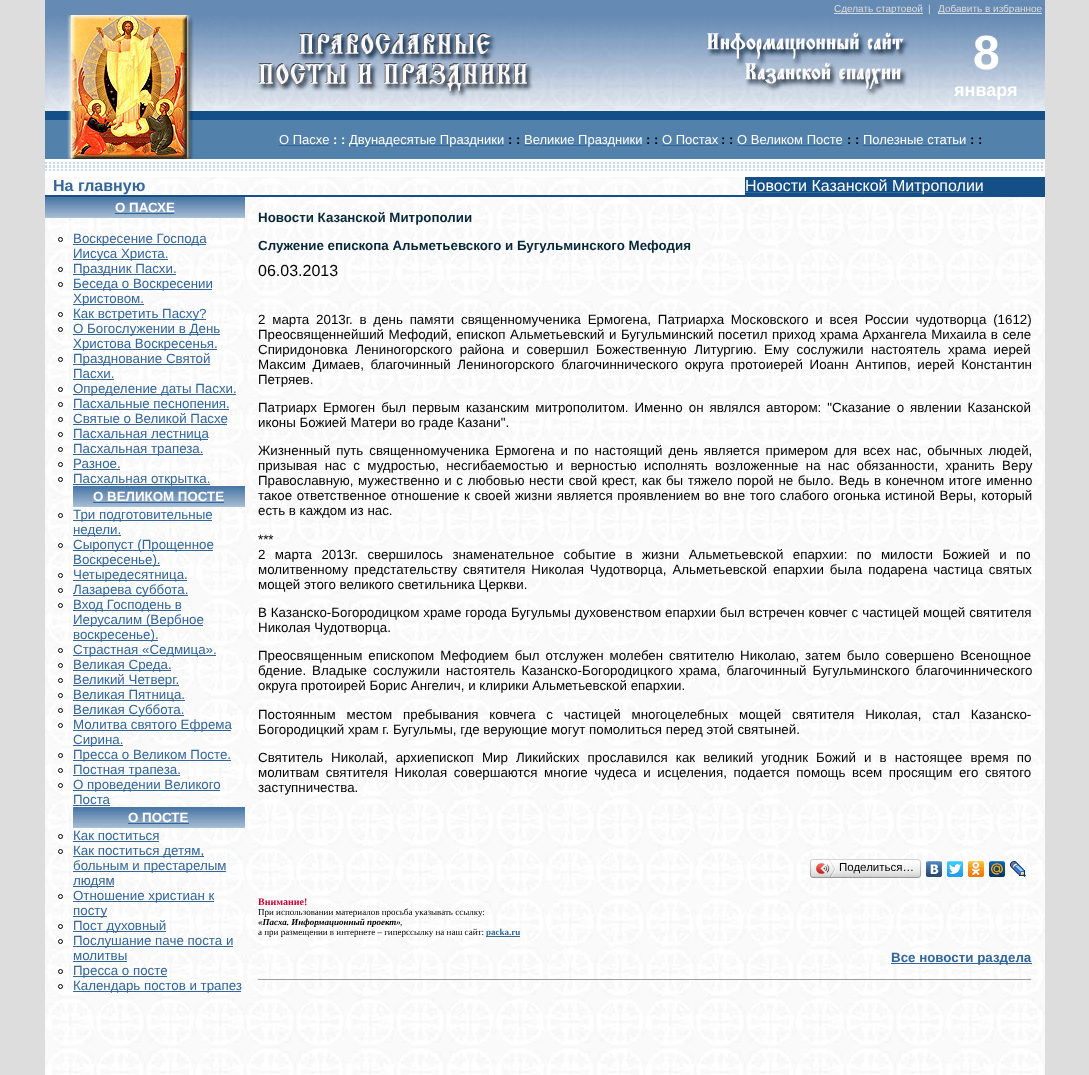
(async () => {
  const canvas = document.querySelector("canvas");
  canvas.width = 1089;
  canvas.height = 1075;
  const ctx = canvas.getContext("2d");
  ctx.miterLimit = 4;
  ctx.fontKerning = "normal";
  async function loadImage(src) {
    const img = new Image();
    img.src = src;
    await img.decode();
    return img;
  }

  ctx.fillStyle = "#dddddd";
  ctx.fillRect(0, 0, 1089, 1075);
  for (const [x, y, w, h, color] of [
    [45, 0, 1000, 15, "#658ab4"],
    [834, 13, 89, 1, "#dddddd"],
    [938, 13, 104, 1, "#dddddd"],
  ]) {
    ctx.fillStyle = color;
    ctx.fillRect(x, y, w, h);
  }
  ctx.drawImage(await loadImage("img/1.png"), 600, 15, 445, 96);
  ctx.drawImage(await loadImage("img/2.png"), 45, 15, 555, 96);
  ctx.drawImage(await loadImage("img/3.png"), 600, 31, 322, 80);
  ctx.fillStyle = "#144f87";
  ctx.fillRect(45, 111, 1000, 9);
  ctx.drawImage(await loadImage("img/4.png"), 67, 111, 127, 9);
  ctx.fillStyle = "#5281ab";
  ctx.fillRect(45, 120, 1000, 39);
  ctx.drawImage(await loadImage("img/5.png"), 67, 120, 127, 39);
  for (const [x, y, w, h, color] of [
    [279, 145, 50, 1, "#336699"],
    [349, 145, 155, 1, "#336699"],
    [524, 145, 118, 1, "#336699"],
    [662, 145, 56, 1, "#336699"],
    [737, 145, 106, 1, "#336699"],
    [863, 145, 103, 1, "#336699"],
    [45, 159, 1000, 18, "#ffffff"],
  ]) {
    ctx.fillStyle = color;
    ctx.fillRect(x, y, w, h);
  }
  ctx.drawImage(await loadImage("img/6.png"), 45, 162, 998, 9);
  ctx.drawImage(await loadImage("img/7.png"), 45, 177, 700, 18);
  for (const [x, y, w, h, color] of [
    [745, 177, 300, 18, "#144f87"],
    [745, 192, 238, 1, "#336699"],
    [45, 195, 1000, 2, "#144f87"],
  ]) {
    ctx.fillStyle = color;
    ctx.fillRect(x, y, w, h);
  }
  ctx.drawImage(await loadImage("img/8.png"), 45, 218, 1000, 857);
  ctx.drawImage(await loadImage("img/9.png"), 45, 197, 200, 21);
  ctx.fillStyle = "#336699";
  ctx.fillRect(115, 213, 59, 1);
  ctx.beginPath();
  ctx.arc(60.5, 239.5, 2, 0, Math.PI * 2);
  ctx.strokeStyle = "#000000";
  ctx.stroke();
  ctx.fillRect(73, 244, 133, 1);
  ctx.fillRect(73, 259, 95, 1);
  ctx.beginPath();
  ctx.arc(60.5, 269.5, 2, 0, Math.PI * 2);
  ctx.stroke();
  ctx.fillRect(73, 274, 103, 1);
  ctx.beginPath();
  ctx.arc(60.5, 284.5, 2, 0, Math.PI * 2);
  ctx.stroke();
  ctx.fillRect(73, 289, 139, 1);
  ctx.fillRect(73, 304, 71, 1);
  ctx.beginPath();
  ctx.arc(60.5, 314.5, 2, 0, Math.PI * 2);
  ctx.stroke();
  ctx.fillRect(73, 319, 133, 1);
  ctx.beginPath();
  ctx.arc(60.5, 329.5, 2, 0, Math.PI * 2);
  ctx.stroke();
  ctx.fillRect(73, 334, 147, 1);
  ctx.fillRect(73, 349, 144, 1);
  ctx.beginPath();
  ctx.arc(60.5, 359.5, 2, 0, Math.PI * 2);
  ctx.stroke();
  ctx.fillRect(73, 364, 137, 1);
  ctx.fillRect(73, 379, 41, 1);
  ctx.beginPath();
  ctx.arc(60.5, 389.5, 2, 0, Math.PI * 2);
  ctx.stroke();
  ctx.fillRect(73, 394, 163, 1);
  ctx.beginPath();
  ctx.arc(60.5, 404.5, 2, 0, Math.PI * 2);
  ctx.stroke();
  ctx.fillRect(73, 409, 156, 1);
  ctx.beginPath();
  ctx.arc(60.5, 419.5, 2, 0, Math.PI * 2);
  ctx.stroke();
  ctx.fillRect(73, 424, 154, 1);
  ctx.beginPath();
  ctx.arc(60.5, 434.5, 2, 0, Math.PI * 2);
  ctx.stroke();
  ctx.fillRect(73, 439, 135, 1);
  ctx.beginPath();
  ctx.arc(60.5, 449.5, 2, 0, Math.PI * 2);
  ctx.stroke();
  ctx.fillRect(73, 454, 130, 1);
  ctx.beginPath();
  ctx.arc(60.5, 464.5, 2, 0, Math.PI * 2);
  ctx.stroke();
  ctx.fillRect(73, 469, 47, 1);
  ctx.beginPath();
  ctx.arc(60.5, 479.5, 2, 0, Math.PI * 2);
  ctx.stroke();
  ctx.fillRect(73, 484, 137, 1);
  ctx.drawImage(await loadImage("img/10.png"), 73, 486, 172, 21);
  ctx.fillRect(93, 502, 131, 1);
  ctx.beginPath();
  ctx.arc(60.5, 515.5, 2, 0, Math.PI * 2);
  ctx.stroke();
  ctx.fillRect(73, 520, 139, 1);
  ctx.fillRect(73, 535, 48, 1);
  ctx.beginPath();
  ctx.arc(60.5, 545.5, 2, 0, Math.PI * 2);
  ctx.stroke();
  ctx.fillRect(73, 550, 140, 1);
  ctx.fillRect(73, 565, 87, 1);
  ctx.beginPath();
  ctx.arc(60.5, 575.5, 2, 0, Math.PI * 2);
  ctx.stroke();
  ctx.fillRect(73, 580, 114, 1);
  ctx.beginPath();
  ctx.arc(60.5, 590.5, 2, 0, Math.PI * 2);
  ctx.stroke();
  ctx.fillRect(73, 595, 115, 1);
  ctx.beginPath();
  ctx.arc(60.5, 605.5, 2, 0, Math.PI * 2);
  ctx.stroke();
  for (const [x, y, w, h, color] of [
    [73, 610, 108, 1, "#336699"],
    [73, 625, 130, 1, "#336699"],
    [73, 640, 85, 1, "#336699"],
  ]) {
    ctx.fillStyle = color;
    ctx.fillRect(x, y, w, h);
  }
  ctx.beginPath();
  ctx.arc(60.5, 650.5, 2, 0, Math.PI * 2);
  ctx.stroke();
  ctx.fillRect(73, 655, 143, 1);
  ctx.beginPath();
  ctx.arc(60.5, 665.5, 2, 0, Math.PI * 2);
  ctx.stroke();
  ctx.fillRect(73, 670, 98, 1);
  ctx.beginPath();
  ctx.arc(60.5, 680.5, 2, 0, Math.PI * 2);
  ctx.stroke();
  ctx.fillRect(73, 685, 106, 1);
  ctx.beginPath();
  ctx.arc(60.5, 695.5, 2, 0, Math.PI * 2);
  ctx.stroke();
  ctx.fillRect(73, 700, 112, 1);
  ctx.beginPath();
  ctx.arc(60.5, 710.5, 2, 0, Math.PI * 2);
  ctx.stroke();
  ctx.fillRect(73, 715, 111, 1);
  ctx.beginPath();
  ctx.arc(60.5, 725.5, 2, 0, Math.PI * 2);
  ctx.stroke();
  ctx.fillRect(73, 730, 158, 1);
  ctx.fillRect(73, 745, 50, 1);
  ctx.beginPath();
  ctx.arc(60.5, 755.5, 2, 0, Math.PI * 2);
  ctx.stroke();
  ctx.fillRect(73, 760, 158, 1);
  ctx.beginPath();
  ctx.arc(60.5, 770.5, 2, 0, Math.PI * 2);
  ctx.stroke();
  ctx.fillRect(73, 775, 107, 1);
  ctx.beginPath();
  ctx.arc(60.5, 785.5, 2, 0, Math.PI * 2);
  ctx.stroke();
  ctx.fillRect(73, 790, 147, 1);
  ctx.fillRect(73, 805, 37, 1);
  ctx.drawImage(await loadImage("img/10.png"), 73, 807, 172, 21);
  ctx.fillRect(128, 823, 61, 1);
  ctx.beginPath();
  ctx.arc(60.5, 836.5, 2, 0, Math.PI * 2);
  ctx.stroke();
  ctx.fillRect(73, 841, 86, 1);
  ctx.beginPath();
  ctx.arc(60.5, 851.5, 2, 0, Math.PI * 2);
  ctx.stroke();
  for (const [x, y, w, h, color] of [
    [73, 856, 131, 1, "#336699"],
    [73, 871, 153, 1, "#336699"],
    [73, 886, 41, 1, "#336699"],
  ]) {
    ctx.fillStyle = color;
    ctx.fillRect(x, y, w, h);
  }
  ctx.beginPath();
  ctx.arc(60.5, 896.5, 2, 0, Math.PI * 2);
  ctx.stroke();
  ctx.fillRect(73, 901, 141, 1);
  ctx.fillRect(73, 916, 34, 1);
  ctx.beginPath();
  ctx.arc(60.5, 926.5, 2, 0, Math.PI * 2);
  ctx.stroke();
  ctx.fillRect(73, 931, 93, 1);
  ctx.beginPath();
  ctx.arc(60.5, 941.5, 2, 0, Math.PI * 2);
  ctx.stroke();
  ctx.fillRect(73, 946, 160, 1);
  ctx.fillRect(73, 961, 54, 1);
  ctx.beginPath();
  ctx.arc(60.5, 971.5, 2, 0, Math.PI * 2);
  ctx.stroke();
  ctx.fillRect(73, 976, 94, 1);
  ctx.beginPath();
  ctx.arc(60.5, 986.5, 2, 0, Math.PI * 2);
  ctx.stroke();
  ctx.fillRect(73, 991, 168, 1);
  ctx.drawImage(await loadImage("img/11.png"), 245, 197, 800, 818);
  ctx.drawImage(await loadImage("img/12.png"), 813, 859, 105, 19);
  ctx.drawImage(await loadImage("img/13.png"), 810, 859, 3, 19);
  ctx.drawImage(await loadImage("img/14.png"), 816, 860, 20, 17);
  ctx.drawImage(await loadImage("img/15.png"), 918, 859, 3, 19);
  ctx.drawImage(await loadImage("img/16.png"), 926, 861, 16, 16);
  ctx.drawImage(await loadImage("img/17.png"), 947, 861, 16, 16);
  ctx.drawImage(await loadImage("img/18.png"), 968, 861, 16, 16);
  ctx.drawImage(await loadImage("img/19.png"), 989, 861, 16, 16);
  ctx.drawImage(await loadImage("img/20.png"), 1010, 861, 16, 16);
  for (const [x, y, w, h, color] of [
    [486, 936, 34, 1, "#336699"],
    [891, 963, 141, 1, "#336699"],
    [258, 979, 774, 1, "#9f9f9f"],
    [1031, 979, 1, 1, "#eeeeee"],
  ]) {
    ctx.fillStyle = color;
    ctx.fillRect(x, y, w, h);
  }
  ctx.font = "10px Liberation Sans";
  ctx.fillStyle = "#dddddd";
  for (const [text, x, y] of [
    ["Сделать стартовой", 834, 12],
    ["|", 928, 12],
    ["Добавить в избранное", 938, 12],
  ]) {
    ctx.fillText(text, x, y);
  }
  ctx.font = "bold 48px Liberation Sans";
  ctx.fillStyle = "#ffffff";
  ctx.fillText("8", 973, 69);
  ctx.font = "bold 18px Liberation Sans";
  ctx.fillText("января", 954, 96);
  ctx.font = "13px Liberation Sans";
  ctx.fillText("О Пасхе", 279, 144);
  ctx.font = "bold 13px Liberation Sans";
  ctx.fillText(": :", 333, 144);
  ctx.font = "13px Liberation Sans";
  ctx.fillText("Двунадесятые Праздники", 349, 144);
  ctx.font = "bold 13px Liberation Sans";
  ctx.fillStyle = "#000000";
  ctx.fillText(": :", 508, 144);
  ctx.font = "13px Liberation Sans";
  ctx.fillStyle = "#ffffff";
  ctx.fillText("Великие Праздники", 524, 144);
  ctx.font = "bold 13px Liberation Sans";
  ctx.fillStyle = "#000000";
  ctx.fillText(": :", 646, 144);
  ctx.font = "13px Liberation Sans";
  ctx.fillStyle = "#ffffff";
  ctx.fillText("О Постах", 662, 144);
  ctx.font = "bold 13px Liberation Sans";
  ctx.fillStyle = "#000000";
  ctx.fillText(": :", 721, 144);
  ctx.font = "13px Liberation Sans";
  ctx.fillStyle = "#ffffff";
  ctx.fillText("О Великом Посте", 737, 144);
  ctx.font = "bold 13px Liberation Sans";
  ctx.fillStyle = "#000000";
  ctx.fillText(": :", 847, 144);
  ctx.font = "13px Liberation Sans";
  ctx.fillStyle = "#ffffff";
  ctx.fillText("Полезные статьи", 863, 144);
  ctx.font = "bold 13px Liberation Sans";
  ctx.fillStyle = "#000000";
  ctx.fillText(": :", 970, 144);
  ctx.font = "bold 16px Liberation Sans";
  ctx.fillStyle = "#336699";
  ctx.fillText("На главную", 53, 191);
  ctx.font = "16px Liberation Sans";
  ctx.fillStyle = "#ffffff";
  ctx.fillText("Новости Казанской Митрополии", 745, 191);
  ctx.font = "bold 13.33px Liberation Sans";
  ctx.fillText("О ПАСХЕ", 115, 212);
  ctx.font = "13.33px Liberation Sans";
  ctx.fillStyle = "#336699";
  for (const [text, x, y] of [
    ["Воскреcение Господа", 73, 243],
    ["Иисуса Христа.", 73, 258],
    ["Праздник Пасхи.", 73, 273],
    ["Беседа о Воскресении", 73, 288],
    ["Христовом.", 73, 303],
    ["Как встретить Пасху?", 73, 318],
    ["О Богослужении в День", 73, 333],
    ["Христова Воскресенья.", 73, 348],
    ["Празднование Святой", 73, 363],
    ["Пасхи.", 73, 378],
    ["Определение даты Пасхи.", 73, 393],
    ["Пасхальные песнопения.", 73, 408],
    ["Святые о Великой Пасхе", 73, 423],
    ["Пасхальная лестница", 73, 438],
    ["Пасхальная трапеза.", 73, 453],
    ["Разное.", 73, 468],
    ["Пасхальная открытка.", 73, 483],
  ]) {
    ctx.fillText(text, x, y);
  }
  ctx.font = "bold 13.33px Liberation Sans";
  ctx.fillStyle = "#ffffff";
  ctx.fillText("О ВЕЛИКОМ ПОСТЕ", 93, 501);
  ctx.font = "13.33px Liberation Sans";
  ctx.fillStyle = "#336699";
  for (const [text, x, y] of [
    ["Три подготовительные", 73, 519],
    ["недели.", 73, 534],
    ["Сыропуст (Прощенное", 73, 549],
    ["Воскресенье).", 73, 564],
    ["Четыредесятница.", 73, 579],
    ["Лазарева суббота.", 73, 594],
    ["Вход Господень в", 73, 609],
    ["Иерусалим (Вербное", 73, 624],
    ["воскресенье).", 73, 639],
    ["Страстная «Седмица».", 73, 654],
    ["Великая Среда.", 73, 669],
    ["Великий Четверг.", 73, 684],
    ["Великая Пятница.", 73, 699],
    ["Великая Суббота.", 73, 714],
    ["Молитва святого Ефрема", 73, 729],
    ["Сирина.", 73, 744],
    ["Пресса о Великом Посте.", 73, 759],
    ["Постная трапеза.", 73, 774],
    ["О проведении Великого", 73, 789],
    ["Поста", 73, 804],
  ]) {
    ctx.fillText(text, x, y);
  }
  ctx.font = "bold 13.33px Liberation Sans";
  ctx.fillStyle = "#ffffff";
  ctx.fillText("О ПОСТЕ", 128, 822);
  ctx.font = "13.33px Liberation Sans";
  ctx.fillStyle = "#336699";
  for (const [text, x, y] of [
    ["Как поститься", 73, 840],
    ["Как поститься детям,", 73, 855],
    ["больным и престарелым", 73, 870],
    ["людям", 73, 885],
    ["Отношение христиан к", 73, 900],
    ["посту", 73, 915],
    ["Пост духовный", 73, 930],
    ["Послушание паче поста и", 73, 945],
    ["молитвы", 73, 960],
    ["Пресса о посте", 73, 975],
    ["Календарь постов и трапез", 73, 990],
  ]) {
    ctx.fillText(text, x, y);
  }
  ctx.font = "bold 13.33px Liberation Sans";
  ctx.fillStyle = "#082839";
  ctx.fillText("Новости Казанской Митрополии", 258, 222);
  ctx.fillText("Служение епископа Альметьевского и Бугульминского Мефодия", 258, 250);
  ctx.font = "16px Liberation Sans";
  ctx.fillStyle = "#000000";
  ctx.fillText("06.03.2013", 258, 276);
  ctx.wordSpacing = "3.1px";
  ctx.font = "13.33px Liberation Sans";
  ctx.fillText("2 марта 2013г. в день памяти священномученика Ермогена, Патриарха Московского и всея России чудотворца (1612)", 258, 324);
  ctx.wordSpacing = "0.8px";
  ctx.fillText("Преосвященнейший Мефодий, епископ Альметьевский и Бугульминский посетил приход храма Архангела Михаила в селе", 258, 339);
  ctx.wordSpacing = "3.75px";
  ctx.fillText("Спиридоновка Лениногорского района и совершил Божественную Литургию. Ему сослужили настоятель храма иерей", 258, 354);
  ctx.wordSpacing = "3px";
  ctx.fillText("Максим Димаев, благочинный Лениногорского благочиннического округа протоиерей Иоанн Антипов, иерей Константин", 258, 369);
  ctx.wordSpacing = "0px";
  ctx.fillText("Петряев.", 258, 384);
  ctx.wordSpacing = "2.25px";
  ctx.fillText("Патриарх Ермоген был первым казанским митрополитом. Именно он являлся автором: \"Сказание о явлении Казанской", 258, 412);
  ctx.wordSpacing = "0px";
  ctx.fillText("иконы Божией Матери во граде Казани\".", 258, 427);
  ctx.wordSpacing = "2.25px";
  ctx.fillText("Жизненный путь священномученика Ермогена и по настоящий день является примером для всех нас, обычных людей,", 258, 455);
  ctx.wordSpacing = "3.6px";
  ctx.fillText("призывая нас с мудростью, несгибаемостью и верностью исполнять возложенные на нас обязанности, хранить Веру", 258, 470);
  ctx.wordSpacing = "0.9px";
  ctx.fillText("Православную, мужественно и с любовью нести свой крест, как бы тяжело порой не было. Ведь в конечном итоге именно", 258, 485);
  ctx.fillText("такое ответственное отношение к своей жизни является проявлением во вне того слабого огонька истиной Веры, который", 258, 500);
  ctx.wordSpacing = "0px";
  ctx.fillText("есть в каждом из нас.", 258, 515);
  ctx.fillText("***", 258, 544);
  ctx.wordSpacing = "5.75px";
  ctx.fillText("2 марта 2013г. свершилось знаменательное событие в жизни Альметьевской епархии: по милости Божией и по", 258, 559);
  ctx.wordSpacing = "2.25px";
  ctx.fillText("молитвенному предстательству святителя Николая Чудотворца, Альметьевской епархии была подарена частица святых", 258, 574);
  ctx.wordSpacing = "0px";
  ctx.fillText("мощей этого великого светильника Церкви.", 258, 589);
  ctx.wordSpacing = "0.25px";
  ctx.fillText("В Казанско-Богородицком храме города Бугульмы духовенством епархии был встречен ковчег с частицей мощей святителя", 258, 617);
  ctx.wordSpacing = "0px";
  ctx.fillText("Николая Чудотворца.", 258, 632);
  ctx.wordSpacing = "2.25px";
  ctx.fillText("Преосвященным епископом Мефодием был отслужен молебен святителю Николаю, затем было совершено Всенощное", 258, 660);
  ctx.fillText("бдение. Владыке сослужили настоятель Казанско-Богородицкого храма, благочинный Бугульминского благочиннического", 258, 675);
  ctx.wordSpacing = "0px";
  ctx.fillText("округа протоирей Борис Ангелич, и клирики Альметьевской епархии.", 258, 690);
  ctx.wordSpacing = "7.1px";
  ctx.fillText("Постоянным местом пребывания ковчега с частицей многоцелебных мощей святителя Николая, стал Казанско-", 258, 719);
  ctx.wordSpacing = "0px";
  ctx.fillText("Богородицкий храм г. Бугульмы, где верующие могут помолиться перед этой святыней.", 258, 734);
  ctx.wordSpacing = "4.4px";
  ctx.fillText("Святитель Николай, архиепископ Мир Ликийских прославился как великий угодник Божий и в настоящее время по", 258, 762);
  ctx.wordSpacing = "2.9px";
  ctx.fillText("молитвам святителя Николая совершаются многие чудеса и исцеления, подается помощь всем просящим его святого", 258, 777);
  ctx.wordSpacing = "0px";
  ctx.fillText("заступничества.", 258, 792);
  ctx.font = "11.5px Liberation Sans";
  ctx.fillText("Поделиться…", 839, 871);
  ctx.font = "bold 10px Liberation Serif";
  ctx.fillStyle = "#cc0033";
  ctx.fillText("Внимание!", 258, 905);
  ctx.font = "9px Liberation Serif";
  ctx.fillStyle = "#000000";
  ctx.fillText("При использовании материалов просьба указывать ссылку:", 258, 915);
  ctx.font = "italic bold 9px Liberation Serif";
  ctx.fillText("«Пасха. Информационный проект»", 258, 925);
  ctx.font = "9px Liberation Serif";
  ctx.fillText(",", 400, 925);
  ctx.fillText("а при размещении в интернете – гиперссылку на наш сайт:", 258, 935);
  ctx.font = "bold 9px Liberation Serif";
  ctx.fillStyle = "#336699";
  ctx.fillText("packa.ru", 486, 935);
  ctx.font = "bold 13.33px Liberation Sans";
  ctx.fillText("Все новости раздела", 891, 962);
})();
